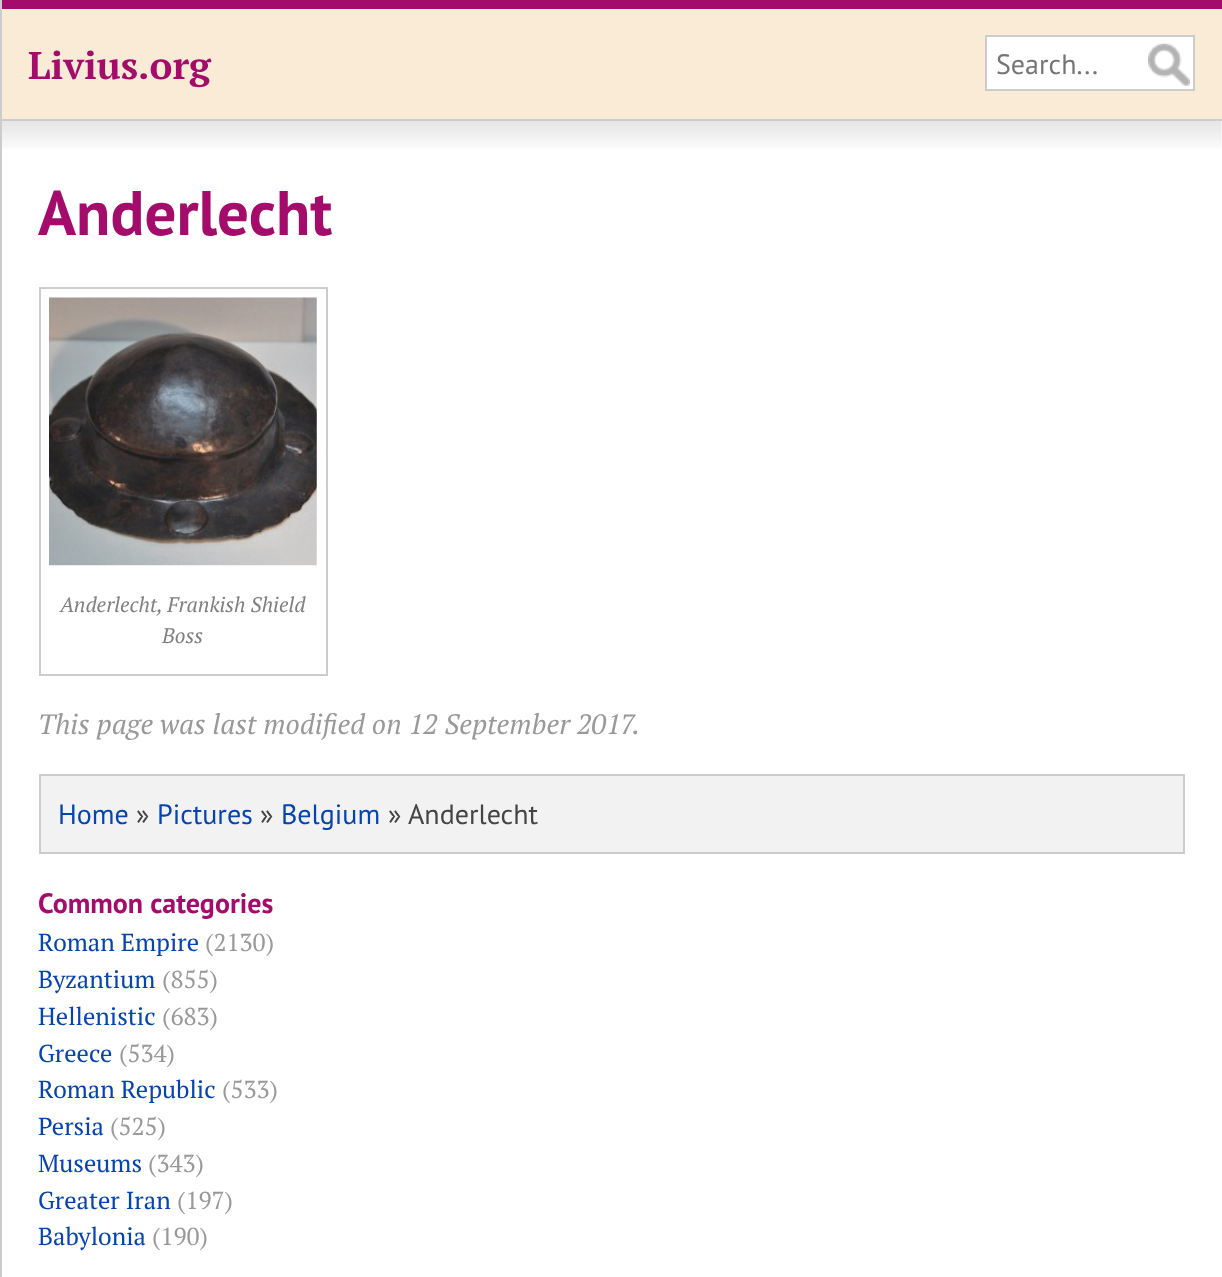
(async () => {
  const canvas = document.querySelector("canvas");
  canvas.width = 1222;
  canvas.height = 1277;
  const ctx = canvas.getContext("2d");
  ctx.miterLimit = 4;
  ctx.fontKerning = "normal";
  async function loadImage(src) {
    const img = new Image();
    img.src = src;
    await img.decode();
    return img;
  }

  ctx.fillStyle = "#ffffff";
  ctx.fillRect(0, 0, 1222, 1277);
  for (const [x, y, w, h, color] of [
    [0, 0, 2, 1277, "#cccccc"],
    [2, 9, 1220, 110, "#faebd7"],
    [2, 0, 1220, 9, "#a40c6b"],
    [2, 119, 1220, 2, "#cccccc"],
    [987, 37, 206, 52, "#ffffff"],
  ]) {
    ctx.fillStyle = color;
    ctx.fillRect(x, y, w, h);
  }
  ctx.drawImage(await loadImage("img/1.png"), 1148, 43, 42, 43);
  ctx.strokeStyle = "#cccccc";
  ctx.lineWidth = 2;
  ctx.strokeRect(986, 36, 208, 54);
  ctx.drawImage(await loadImage("img/2.png"), 2, 121, 1220, 28);
  for (const [x, y, w, h, color] of [
    [39, 287, 288, 2, "#cccccc"],
    [326, 287, 2, 389, "#cccccc"],
    [39, 674, 288, 2, "#cccccc"],
    [39, 287, 2, 389, "#cccccc"],
  ]) {
    ctx.fillStyle = color;
    ctx.fillRect(x, y, w, h);
  }
  ctx.drawImage(await loadImage("img/3.png"), 49, 297, 268, 269);
  ctx.fillStyle = "#f2f2f2";
  ctx.beginPath();
  ctx.rect(40, 775, 1144, 78);
  ctx.fill();
  ctx.stroke();
  ctx.font = "bold 38.5px PT Serif";
  ctx.fillStyle = "#a40c6b";
  ctx.fillText("Livius.org", 28, 79);
  ctx.font = "28px PT Sans";
  ctx.fillStyle = "#757575";
  ctx.fillText("Search...", 996, 74);
  ctx.font = "bold 63px PT Sans";
  ctx.fillStyle = "#a40c6b";
  ctx.fillText("Anderlecht", 38, 235);
  ctx.font = "italic 21px PT Serif";
  ctx.fillStyle = "#808080";
  ctx.fillText("Anderlecht, Frankish Shield", 60, 612);
  ctx.fillText("Boss", 162, 643);
  ctx.font = "italic 28px PT Serif";
  ctx.fillStyle = "#999999";
  ctx.fillText("This page was last modified on 12 September 2017.", 38, 734);
  ctx.font = "28px PT Sans";
  ctx.fillStyle = "#0645ad";
  ctx.fillText("Home", 58, 824);
  ctx.fillStyle = "#444444";
  ctx.fillText("»", 136, 824);
  ctx.fillStyle = "#0645ad";
  ctx.fillText("Pictures", 157, 824);
  ctx.fillStyle = "#444444";
  ctx.fillText("»", 260, 824);
  ctx.fillStyle = "#0645ad";
  ctx.fillText("Belgium", 281, 824);
  ctx.fillStyle = "#444444";
  ctx.fillText("» Anderlecht", 388, 824);
  ctx.font = "bold 28px PT Sans";
  ctx.fillStyle = "#a40c6b";
  ctx.fillText("Common categories", 38, 913);
  ctx.font = "24.5px PT Serif";
  ctx.fillStyle = "#0645ad";
  ctx.fillText("Roman Empire", 38, 951);
  ctx.fillStyle = "#999999";
  ctx.fillText("(2130)", 205, 951);
  ctx.fillStyle = "#0645ad";
  ctx.fillText("Byzantium", 38, 988);
  ctx.fillStyle = "#999999";
  ctx.fillText("(855)", 162, 988);
  ctx.fillStyle = "#0645ad";
  ctx.fillText("Hellenistic", 38, 1025);
  ctx.fillStyle = "#999999";
  ctx.fillText("(683)", 162, 1025);
  ctx.fillStyle = "#0645ad";
  ctx.fillText("Greece", 38, 1062);
  ctx.fillStyle = "#999999";
  ctx.fillText("(534)", 119, 1062);
  ctx.fillStyle = "#0645ad";
  ctx.fillText("Roman Republic", 38, 1098);
  ctx.fillStyle = "#999999";
  ctx.fillText("(533)", 222, 1098);
  ctx.fillStyle = "#0645ad";
  ctx.fillText("Persia", 38, 1135);
  ctx.fillStyle = "#999999";
  ctx.fillText("(525)", 110, 1135);
  ctx.fillStyle = "#0645ad";
  ctx.fillText("Museums", 38, 1172);
  ctx.fillStyle = "#999999";
  ctx.fillText("(343)", 148, 1172);
  ctx.fillStyle = "#0645ad";
  ctx.fillText("Greater Iran", 38, 1209);
  ctx.fillStyle = "#999999";
  ctx.fillText("(197)", 177, 1209);
  ctx.fillStyle = "#0645ad";
  ctx.fillText("Babylonia", 38, 1245);
  ctx.fillStyle = "#999999";
  ctx.fillText("(190)", 152, 1245);
})();
